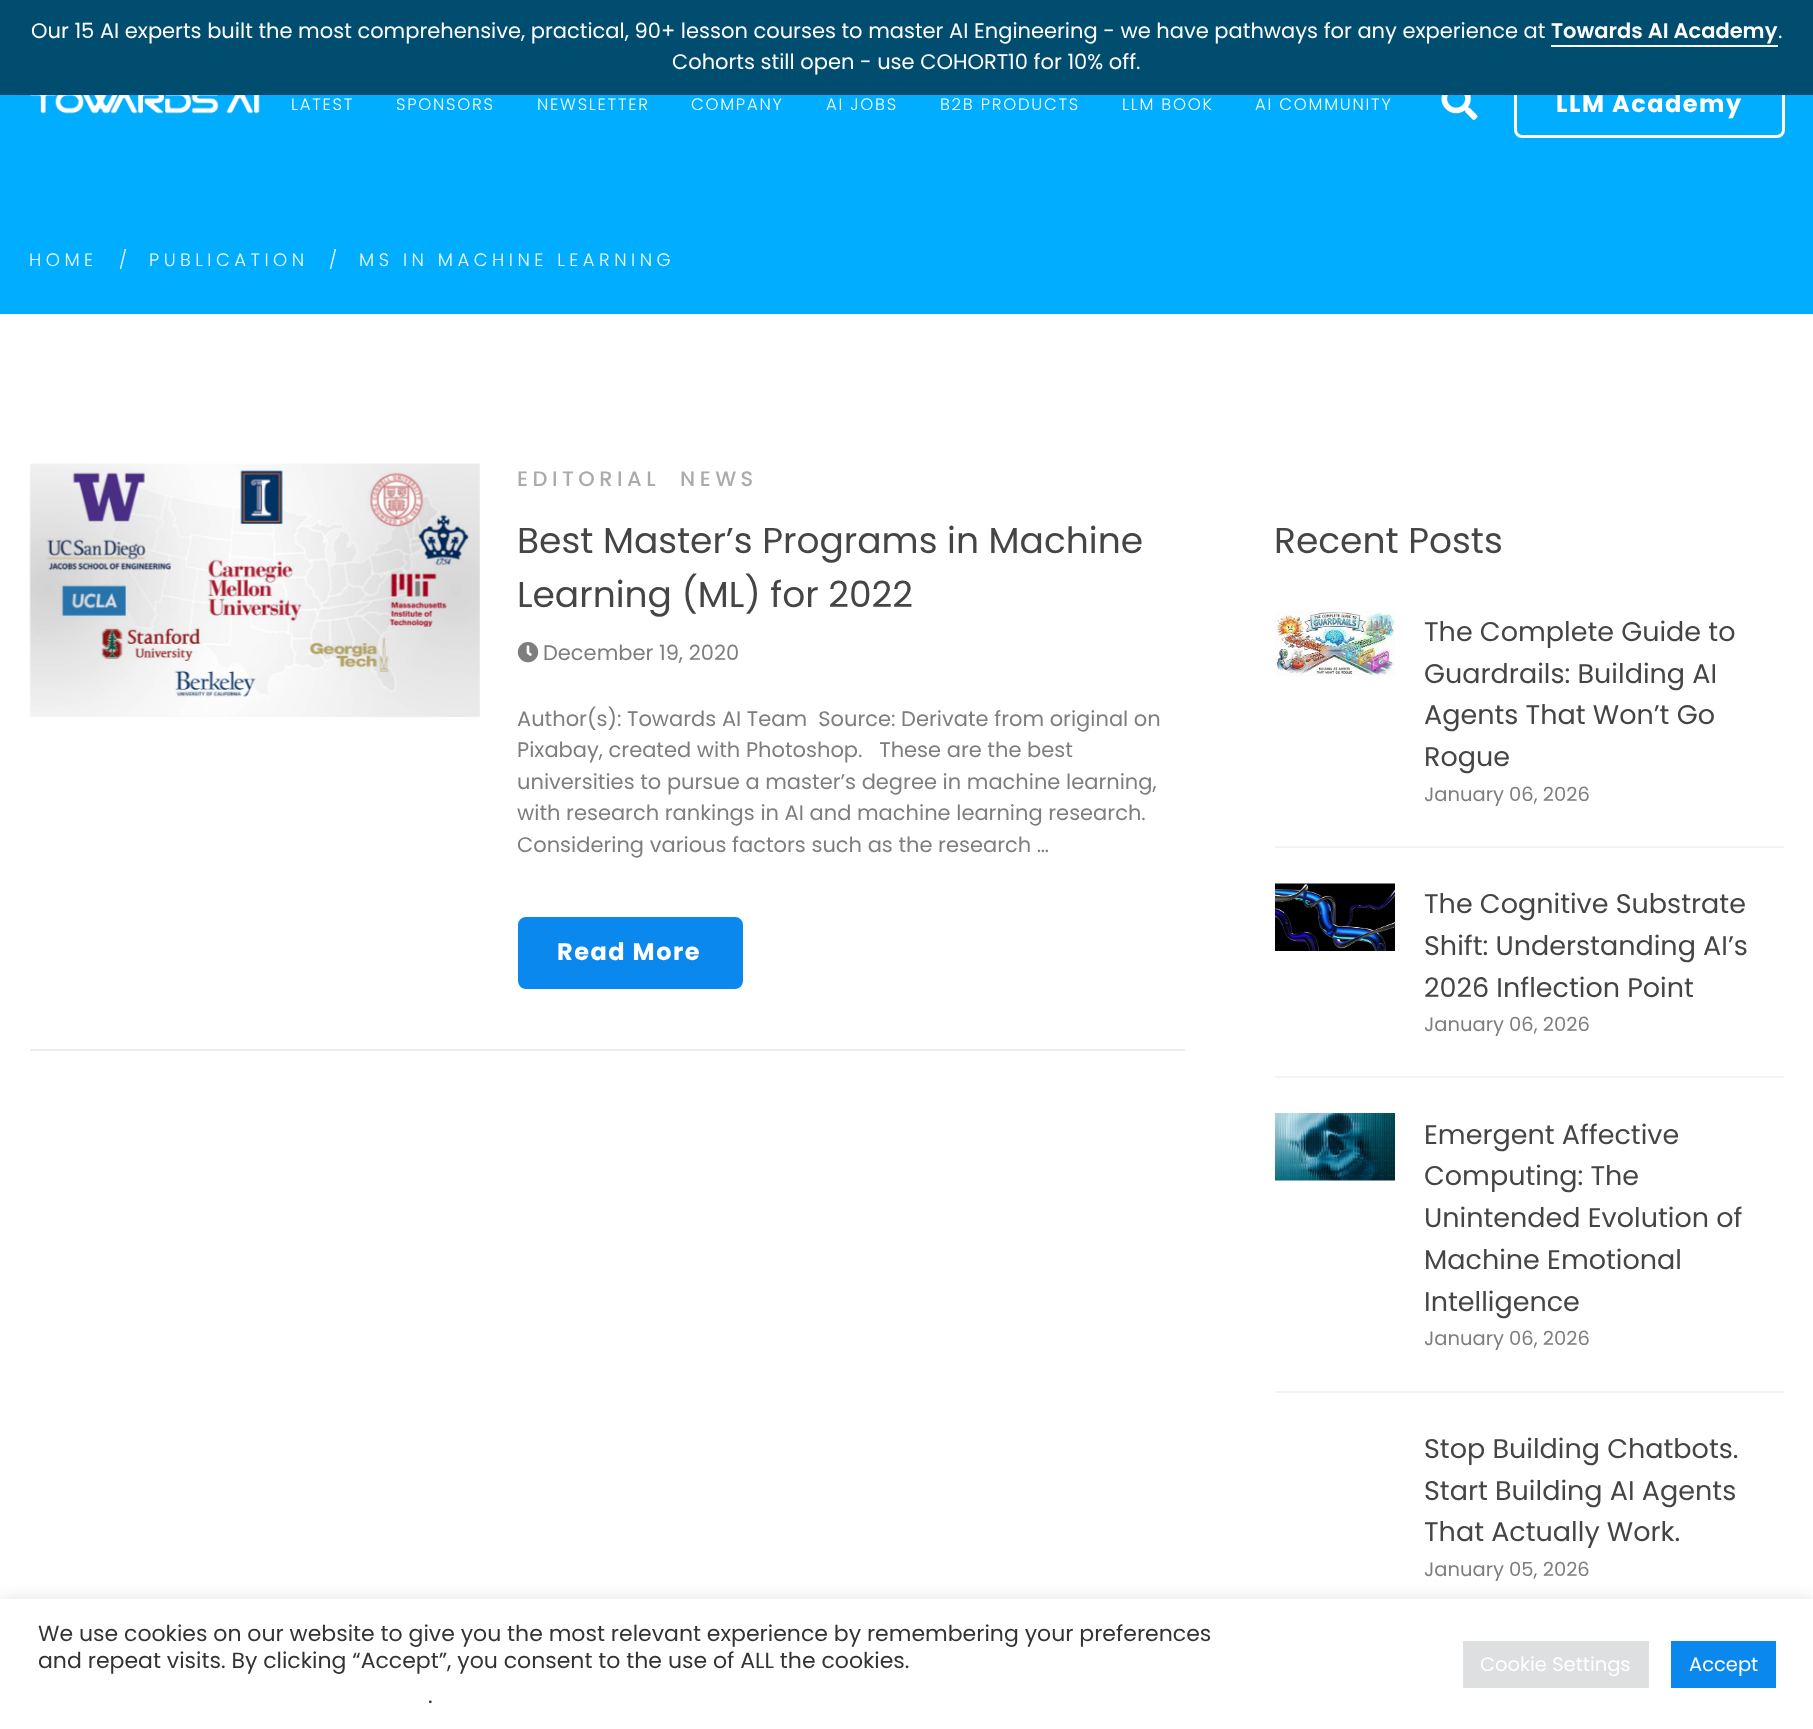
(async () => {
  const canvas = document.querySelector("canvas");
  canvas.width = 1813;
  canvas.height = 1729;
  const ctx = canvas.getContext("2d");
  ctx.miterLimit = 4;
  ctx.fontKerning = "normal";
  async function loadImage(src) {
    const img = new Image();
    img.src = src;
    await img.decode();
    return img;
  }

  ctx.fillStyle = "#ffffff";
  ctx.fillRect(0, 0, 1813, 1729);
  ctx.fillStyle = "#00adff";
  ctx.fillRect(0, 95, 1813, 219);
  ctx.drawImage(await loadImage("img/1.png"), 30, 95, 230, 19);
  ctx.drawImage(await loadImage("img/2.png"), 1441, 95, 37, 25);
  ctx.beginPath();
  ctx.roundRect(1515.5, 67.5, 268, 69, 6.5);
  ctx.strokeStyle = "#ffffff";
  ctx.lineWidth = 3;
  ctx.stroke();
  ctx.fillStyle = "#ededed";
  ctx.fillRect(30, 1049, 1155, 2);
  ctx.drawImage(await loadImage("img/3.png"), 29, 463, 451, 254);
  ctx.drawImage(await loadImage("img/4.png"), 517, 642, 22, 21);
  ctx.fillStyle = "#0b88ee";
  ctx.beginPath();
  ctx.roundRect(519, 918, 223, 70, 7);
  ctx.fill();
  ctx.strokeStyle = "#0b88ee";
  ctx.lineWidth = 2;
  ctx.stroke();
  ctx.drawImage(await loadImage("img/5.png"), 1275, 611, 120, 65);
  ctx.fillStyle = "#f3f3f3";
  ctx.fillRect(1275, 846, 509, 2);
  ctx.drawImage(await loadImage("img/6.png"), 1275, 883, 120, 68);
  ctx.fillRect(1275, 1076, 509, 2);
  ctx.drawImage(await loadImage("img/7.png"), 1275, 1113, 120, 68);
  ctx.fillRect(1275, 1391, 509, 2);
  ctx.fillStyle = "rgba(172, 171, 171, 0.3)";
  ctx.filter = "blur(7.5px)";
  ctx.beginPath();
  ctx.rect(0, 1598, 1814, 130);
  ctx.fill();
  ctx.filter = "none";
  for (const [x, y, w, h, color] of [
    [0, 1599, 1813, 130, "#ffffff"],
    [1463, 1641, 186, 47, "#dedfe0"],
    [1671, 1641, 105, 47, "#0b88ee"],
  ]) {
    ctx.fillStyle = color;
    ctx.fillRect(x, y, w, h);
  }
  ctx.letterSpacing = "1.75px";
  ctx.font = "300 16.5px Poppins";
  ctx.fillStyle = "#f0ffff";
  for (const [text, x, y] of [
    ["LATEST", 291, 110],
    ["SPONSORS", 396, 110],
    ["NEWSLETTER", 537, 110],
    ["COMPANY", 691, 110],
    ["AI JOBS", 826, 110],
    ["B2B PRODUCTS", 940, 110],
    ["LLM BOOK", 1122, 110],
    ["AI COMMUNITY", 1255, 110],
  ]) {
    ctx.fillText(text, x, y);
  }
  ctx.letterSpacing = "1.5px";
  ctx.font = "bold 24px Poppins";
  ctx.fillStyle = "#ffffff";
  ctx.fillText("LLM Academy", 1556, 112);
  ctx.fillStyle = "#004d70";
  ctx.fillRect(0, 0, 1813, 95);
  ctx.letterSpacing = "0px";
  ctx.font = "21px Poppins";
  ctx.fillStyle = "#ffffff";
  ctx.fillText("Cohorts still open - use COHORT10 for 10% off.", 672, 69);
  ctx.fillText(".", 1778, 38);
  ctx.font = "600 21px Poppins";
  ctx.fillText("Towards AI Academy", 1551, 38);
  ctx.fillRect(1551, 45, 227, 2);
  ctx.font = "21px Poppins";
  ctx.fillText("Our 15 AI experts built the most comprehensive, practical, 90+ lesson courses to master AI Engineering - we have pathways for any experience at", 31, 38);
  ctx.letterSpacing = "4.5px";
  ctx.font = "300 18px Poppins";
  ctx.fillStyle = "#f0ffff";
  for (const [text, x, y] of [
    ["HOME", 29, 266],
    ["/", 119, 266],
    ["PUBLICATION", 149, 266],
    ["/", 329, 266],
    ["MS IN MACHINE LEARNING", 359, 266],
  ]) {
    ctx.fillText(text, x, y);
  }
  ctx.font = "500 21px Poppins";
  ctx.fillStyle = "#ababab";
  ctx.fillText("EDITORIAL", 517, 486);
  ctx.fillText("NEWS", 680, 486);
  ctx.letterSpacing = "0px";
  ctx.font = "36px Poppins";
  ctx.fillStyle = "#454545";
  ctx.fillText("Best Master’s Programs in Machine", 517, 553);
  ctx.fillText("Learning (ML) for 2022", 517, 607);
  ctx.font = "21px Poppins";
  ctx.fillStyle = "#7e7e7e";
  for (const [text, x, y] of [
    ["December 19, 2020", 543, 660],
    ["Author(s): Towards AI Team  Source: Derivate from original on", 517, 726],
    ["Pixabay, created with Photoshop.   These are the best", 517, 757],
    ["universities to pursue a master’s degree in machine learning,", 517, 789],
    ["with research rankings in AI and machine learning research.", 517, 820],
    ["Considering various factors such as the research …", 517, 852],
  ]) {
    ctx.fillText(text, x, y);
  }
  ctx.letterSpacing = "1.5px";
  ctx.font = "bold 24px Poppins";
  ctx.fillStyle = "#ffffff";
  ctx.fillText("Read More", 557, 960);
  ctx.letterSpacing = "0px";
  ctx.font = "36px Poppins";
  ctx.fillStyle = "#454545";
  ctx.fillText("Recent Posts", 1274, 553);
  ctx.font = "27px Poppins";
  for (const [text, x, y] of [
    ["The Complete Guide to", 1424, 641],
    ["Guardrails: Building AI", 1424, 683],
    ["Agents That Won’t Go", 1424, 724],
    ["Rogue", 1424, 766],
  ]) {
    ctx.fillText(text, x, y);
  }
  ctx.font = "19.5px Poppins";
  ctx.fillStyle = "#7e7e7e";
  ctx.fillText("January 06, 2026", 1424, 801);
  ctx.font = "27px Poppins";
  ctx.fillStyle = "#454545";
  for (const [text, x, y] of [
    ["The Cognitive Substrate", 1424, 913],
    ["Shift: Understanding AI’s", 1424, 955],
    ["2026 Inflection Point", 1424, 997],
  ]) {
    ctx.fillText(text, x, y);
  }
  ctx.font = "19.5px Poppins";
  ctx.fillStyle = "#7e7e7e";
  ctx.fillText("January 06, 2026", 1424, 1031);
  ctx.font = "27px Poppins";
  ctx.fillStyle = "#454545";
  for (const [text, x, y] of [
    ["Emergent Affective", 1424, 1144],
    ["Computing: The", 1424, 1185],
    ["Unintended Evolution of", 1424, 1227],
    ["Machine Emotional", 1424, 1269],
    ["Intelligence", 1424, 1311],
  ]) {
    ctx.fillText(text, x, y);
  }
  ctx.font = "19.5px Poppins";
  ctx.fillStyle = "#7e7e7e";
  ctx.fillText("January 06, 2026", 1424, 1345);
  ctx.font = "27px Poppins";
  ctx.fillStyle = "#454545";
  for (const [text, x, y] of [
    ["Stop Building Chatbots.", 1424, 1458],
    ["Start Building AI Agents", 1424, 1500],
    ["That Actually Work.", 1424, 1541],
  ]) {
    ctx.fillText(text, x, y);
  }
  ctx.font = "19.5px Poppins";
  ctx.fillStyle = "#7e7e7e";
  ctx.fillText("January 05, 2026", 1424, 1576);
  ctx.font = "22px Poppins";
  ctx.fillStyle = "#333333";
  for (const [text, x, y] of [
    ["We use cookies on our website to give you the most relevant experience by remembering your preferences", 38, 1641],
    ["and repeat visits. By clicking “Accept”, you consent to the use of ALL the cookies.", 38, 1668],
    [".", 428, 1703],
  ]) {
    ctx.fillText(text, x, y);
  }
  ctx.font = "19.5px Poppins";
  ctx.fillStyle = "#ffffff";
  ctx.fillText("Cookie Settings", 1480, 1671);
  ctx.fillText("Accept", 1689, 1671);
})();
